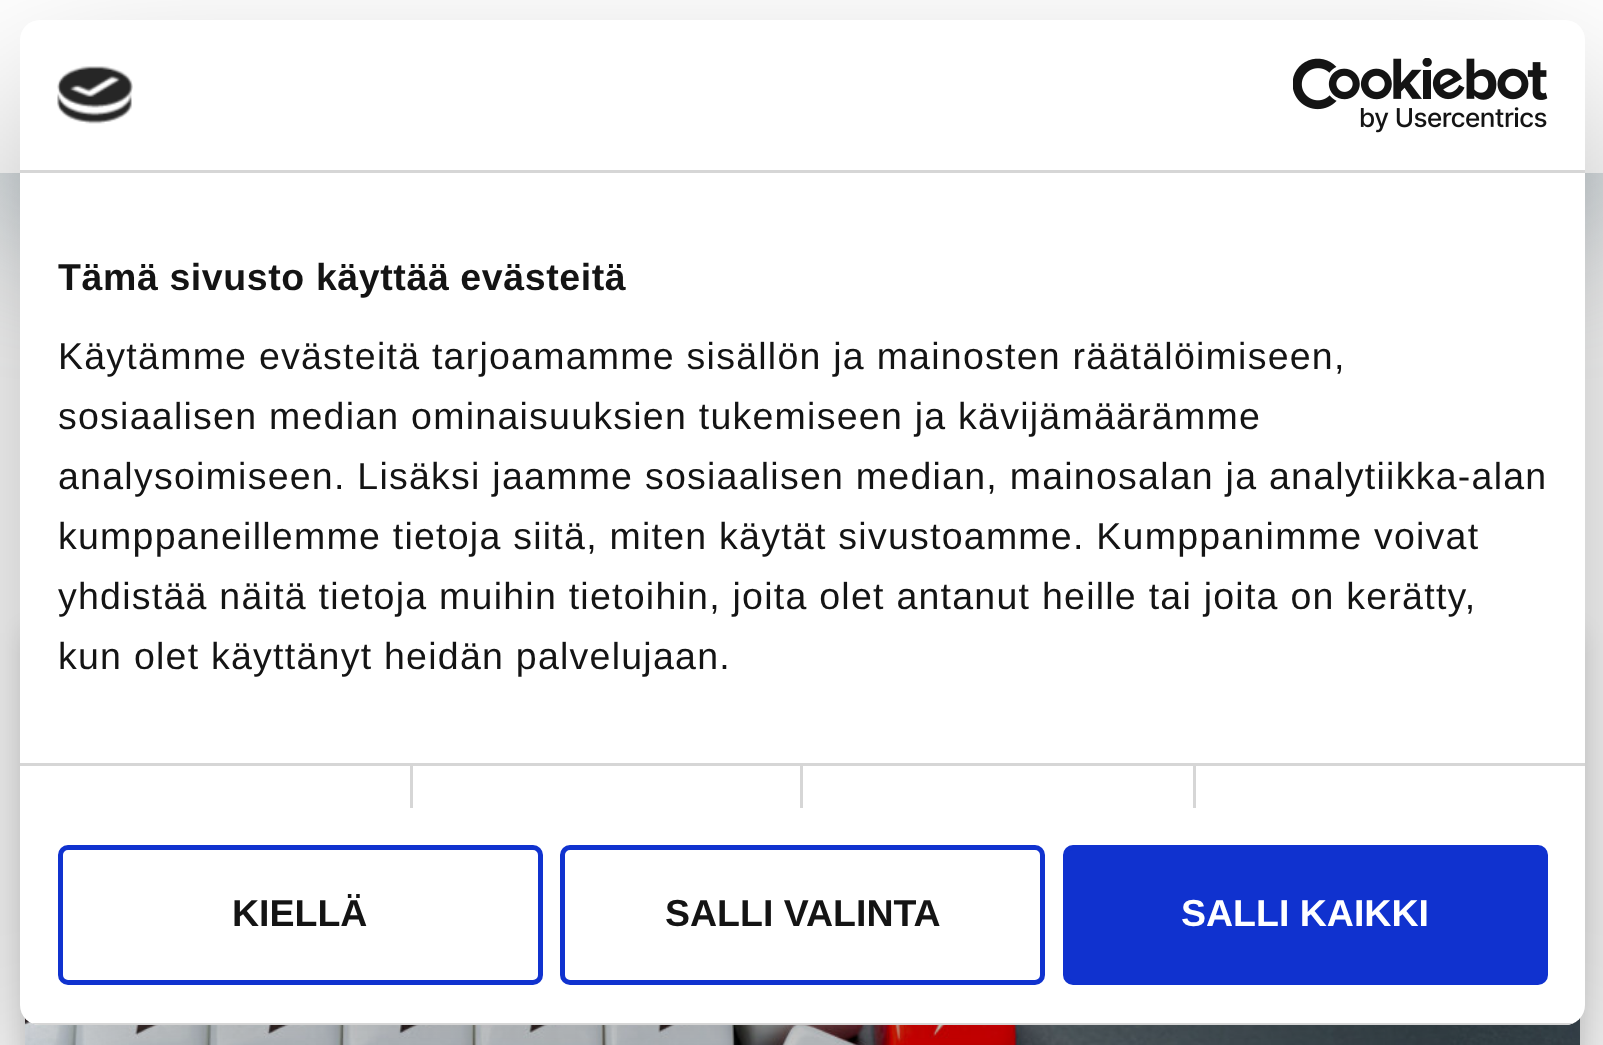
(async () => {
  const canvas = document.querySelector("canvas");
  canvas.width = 1603;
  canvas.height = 1045;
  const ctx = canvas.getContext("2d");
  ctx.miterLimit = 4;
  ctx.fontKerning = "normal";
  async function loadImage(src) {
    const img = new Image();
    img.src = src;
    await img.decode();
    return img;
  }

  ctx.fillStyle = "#ffffff";
  ctx.fillRect(0, 0, 1603, 1045);
  ctx.fillStyle = "rgba(109, 131, 143, 0.73)";
  ctx.filter = "blur(75px)";
  ctx.beginPath();
  ctx.rect(0, 38, 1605, 172);
  ctx.fill();
  ctx.filter = "none";
  ctx.fillStyle = "#ffffff";
  ctx.fillRect(0, 0, 1603, 173);
  ctx.fillStyle = "rgba(0, 0, 0, 0.15)";
  ctx.filter = "blur(12.5px)";
  ctx.beginPath();
  ctx.rect(25, 633, 1555, 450);
  ctx.fill();
  ctx.filter = "none";
  ctx.drawImage(await loadImage("img/3.png"), 25, 1018, 1555, 27);
  ctx.fillStyle = "rgba(0, 0, 0, 0.3)";
  ctx.filter = "blur(85px)";
  ctx.beginPath();
  ctx.roundRect(20, 100, 1565, 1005, 20);
  ctx.fill();
  ctx.filter = "none";
  ctx.fillStyle = "#ffffff";
  ctx.beginPath();
  ctx.roundRect(20, 20, 1565, 1005, 20);
  ctx.fill();
  ctx.fillStyle = "#d6d6d6";
  ctx.fillRect(20, 170, 1565, 3);
  ctx.drawImage(await loadImage("img/1.png"), 57, 66, 76, 58);
  ctx.drawImage(await loadImage("img/2.png"), 1293, 58, 255, 75);
  for (const [x, y, w, h, color] of [
    [410, 765, 3, 43, "#d6d6d6"],
    [800, 765, 3, 43, "#d6d6d6"],
    [1193, 765, 3, 43, "#d6d6d6"],
    [20, 763, 1565, 3, "#d6d6d6"],
  ]) {
    ctx.fillStyle = color;
    ctx.fillRect(x, y, w, h);
  }
  ctx.save();
  ctx.beginPath();
  ctx.roundRect(20, 20, 1565, 1005, 20);
  ctx.clip();
  ctx.fillRect(31, 1023, 1543, 2);
  ctx.restore();
  ctx.beginPath();
  ctx.roundRect(60.5, 847.5, 480, 135, 7.5);
  ctx.strokeStyle = "#1032cf";
  ctx.lineWidth = 5;
  ctx.stroke();
  ctx.beginPath();
  ctx.roundRect(562.5, 847.5, 480, 135, 7.5);
  ctx.stroke();
  ctx.fillStyle = "#1032cf";
  ctx.beginPath();
  ctx.roundRect(1065.5, 847.5, 480, 135, 7.5);
  ctx.fill();
  ctx.stroke();
  ctx.letterSpacing = "0.6px";
  ctx.font = "bold 37.5px Liberation Sans";
  ctx.fillStyle = "#141414";
  ctx.fillText("Tämä sivusto käyttää evästeitä", 58, 290);
  ctx.letterSpacing = "1.25px";
  ctx.font = "37.5px Liberation Sans";
  for (const [text, x, y] of [
    ["Käytämme evästeitä tarjoamamme sisällön ja mainosten räätälöimiseen,", 58, 369],
    ["sosiaalisen median ominaisuuksien tukemiseen ja kävijämäärämme", 58, 429],
    ["analysoimiseen. Lisäksi jaamme sosiaalisen median, mainosalan ja analytiikka-alan", 58, 489],
    ["kumppaneillemme tietoja siitä, miten käytät sivustoamme. Kumppanimme voivat", 58, 549],
    ["yhdistää näitä tietoja muihin tietoihin, joita olet antanut heille tai joita on kerätty,", 58, 609],
    ["kun olet käyttänyt heidän palvelujaan.", 58, 669],
  ]) {
    ctx.fillText(text, x, y);
  }
  ctx.letterSpacing = "0px";
  ctx.font = "bold 37.5px Liberation Sans";
  ctx.fillText("KIELLÄ", 232, 926);
  ctx.fillText("SALLI VALINTA", 665, 926);
  ctx.fillStyle = "#ffffff";
  ctx.fillText("SALLI KAIKKI", 1181, 926);
})();
